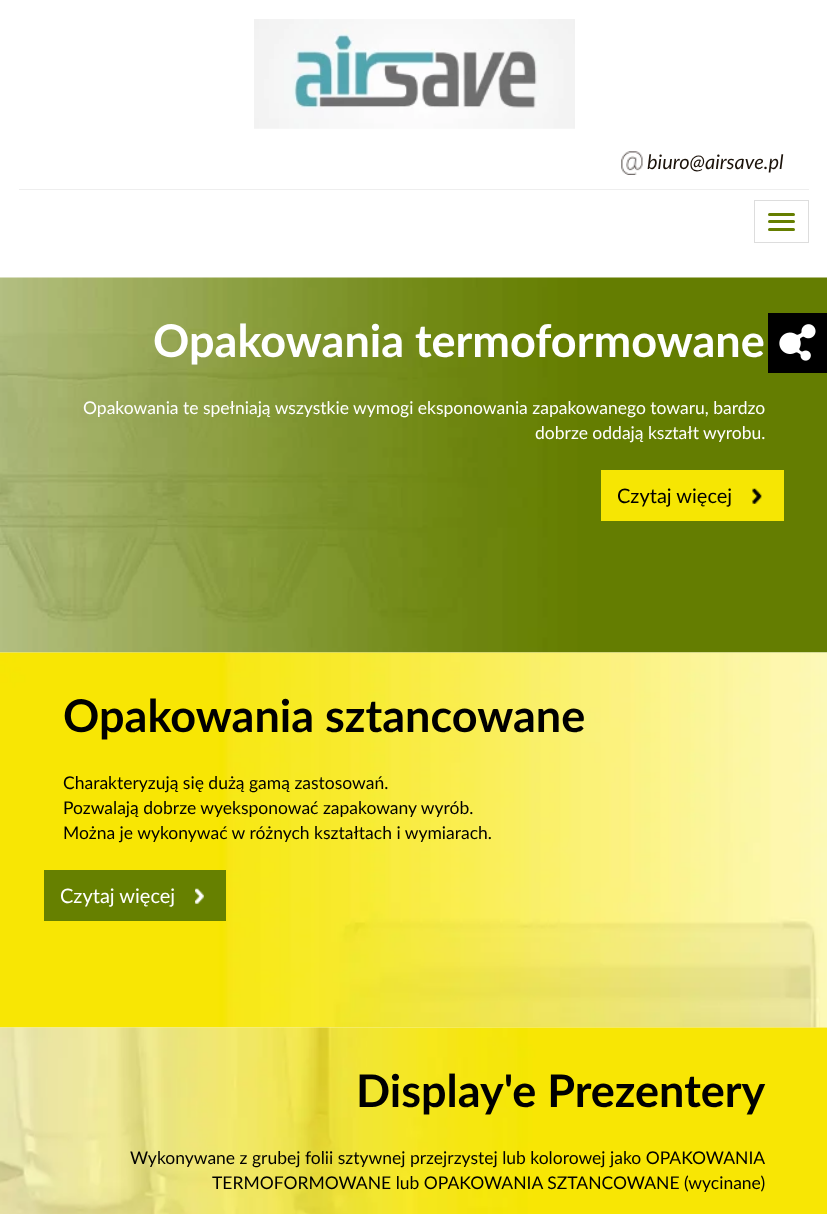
(async () => {
  const canvas = document.querySelector("canvas");
  canvas.width = 827;
  canvas.height = 1214;
  const ctx = canvas.getContext("2d");
  ctx.miterLimit = 4;
  ctx.fontKerning = "normal";
  async function loadImage(src) {
    const img = new Image();
    img.src = src;
    await img.decode();
    return img;
  }

  ctx.fillStyle = "#ffffff";
  ctx.fillRect(0, 0, 827, 1214);
  ctx.drawImage(await loadImage("img/1.png"), 254, 19, 321, 110);
  ctx.fillStyle = "#eeeeee";
  ctx.fillRect(19, 189, 790, 1);
  ctx.drawImage(await loadImage("img/2.png"), 621, 151, 22, 24);
  ctx.strokeStyle = "#dddddd";
  ctx.strokeRect(754.5, 200.5, 54, 42);
  ctx.fillStyle = "#657e00";
  ctx.beginPath();
  ctx.roundRect(768, 213, 27, 3, 1.5);
  ctx.fill();
  ctx.beginPath();
  ctx.roundRect(768, 220, 27, 3, 1.5);
  ctx.fill();
  ctx.beginPath();
  ctx.roundRect(768, 228, 27, 3, 1.5);
  ctx.fill();
  ctx.drawImage(await loadImage("img/3.png"), 0, 277, 827, 376);
  ctx.fillStyle = "#f6e603";
  ctx.fillRect(601, 470, 183, 51);
  ctx.drawImage(await loadImage("img/4.png"), 752, 488, 10, 16);
  ctx.drawImage(await loadImage("img/5.png"), 0, 652, 827, 376);
  ctx.fillStyle = "#668000";
  ctx.fillRect(44, 870, 182, 51);
  ctx.drawImage(await loadImage("img/6.png"), 195, 888, 9, 16);
  ctx.drawImage(await loadImage("img/7.png"), 0, 1027, 827, 187);
  ctx.fillStyle = "#000000";
  ctx.fillRect(768, 313, 59, 60);
  ctx.drawImage(await loadImage("img/8.png"), 779, 324, 37, 37);
  ctx.font = "italic 20px Lato";
  ctx.fillStyle = "#1b120a";
  ctx.fillText("biuro@airsave.pl", 647, 169);
  ctx.font = "bold 45px Lato";
  ctx.fillStyle = "#ffffff";
  ctx.fillText("Opakowania termoformowane", 153, 357);
  ctx.font = "17.5px Lato";
  ctx.fillText("Opakowania te spełniają wszystkie wymogi eksponowania zapakowanego towaru, bardzo", 83, 414);
  ctx.fillText("dobrze oddają kształt wyrobu.", 535, 439);
  ctx.font = "20px Lato";
  ctx.fillStyle = "#000000";
  ctx.fillText("Czytaj więcej", 617, 503);
  ctx.font = "bold 45px Lato";
  ctx.fillText("Opakowania sztancowane", 63, 732);
  ctx.font = "17.5px Lato";
  for (const [text, x, y] of [
    ["Charakteryzują się dużą gamą zastosowań.", 63, 789],
    ["Pozwalają dobrze wyeksponować zapakowany wyrób.", 63, 814],
    ["Można je wykonywać w różnych kształtach i wymiarach.", 63, 839],
  ]) {
    ctx.fillText(text, x, y);
  }
  ctx.font = "20px Lato";
  ctx.fillStyle = "#ffffff";
  ctx.fillText("Czytaj więcej", 60, 903);
  ctx.font = "bold 45px Lato";
  ctx.fillStyle = "#000000";
  ctx.fillText("Display'e Prezentery", 356, 1107);
  ctx.font = "17.5px Lato";
  ctx.fillText("Wykonywane z grubej folii sztywnej przejrzystej lub kolorowej jako OPAKOWANIA", 130, 1164);
  ctx.fillText("TERMOFORMOWANE lub OPAKOWANIA SZTANCOWANE (wycinane)", 212, 1189);
})();
